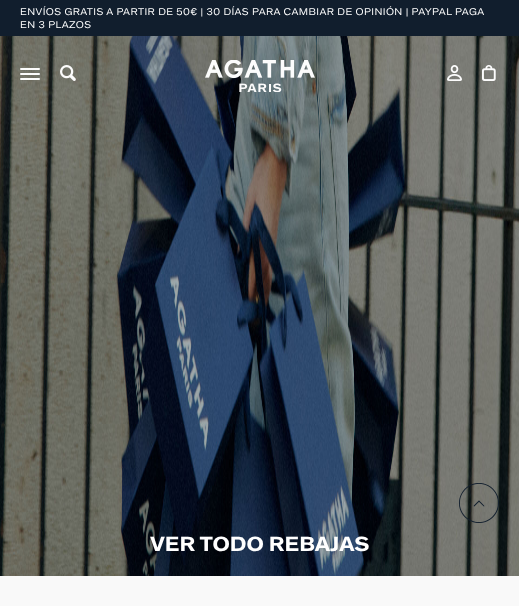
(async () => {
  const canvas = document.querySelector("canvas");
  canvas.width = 519;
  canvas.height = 606;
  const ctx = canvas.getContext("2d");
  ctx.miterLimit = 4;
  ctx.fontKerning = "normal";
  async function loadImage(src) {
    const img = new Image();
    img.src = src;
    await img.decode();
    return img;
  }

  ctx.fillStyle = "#f9f9f9";
  ctx.fillRect(0, 0, 519, 606);
  ctx.fillStyle = "#111e2d";
  ctx.fillRect(0, 0, 519, 36);
  ctx.drawImage(await loadImage("img/6.png"), 0, 36, 519, 540);
  ctx.drawImage(await loadImage("img/1.png"), 205, 60, 110, 32);
  ctx.fillStyle = "#fcfcfc";
  ctx.beginPath();
  ctx.roundRect(20, 68, 20, 2, 1);
  ctx.fill();
  ctx.beginPath();
  ctx.roundRect(20, 73, 20, 2, 1);
  ctx.fill();
  ctx.beginPath();
  ctx.roundRect(20, 78, 20, 2, 1);
  ctx.fill();
  ctx.drawImage(await loadImage("img/2.png"), 60, 65, 16, 16);
  ctx.drawImage(await loadImage("img/3.png"), 447, 65, 15, 16);
  ctx.drawImage(await loadImage("img/4.png"), 482, 65, 14, 16);
  ctx.drawImage(await loadImage("img/5.png"), 459, 483, 40, 40);
  ctx.letterSpacing = "0.4px";
  ctx.font = "10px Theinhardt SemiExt";
  ctx.fillStyle = "#ffffff";
  ctx.fillText("ENVÍOS GRATIS A PARTIR DE 50€ | 30 DÍAS PARA CAMBIAR DE OPINIÓN | PAYPAL PAGA", 20, 15);
  ctx.fillText("EN 3 PLAZOS", 20, 28);
  ctx.letterSpacing = "0px";
  ctx.font = "bold 21px Theinhardt SemiExt";
  ctx.fillText("VER TODO REBAJAS", 150, 551);
})();
